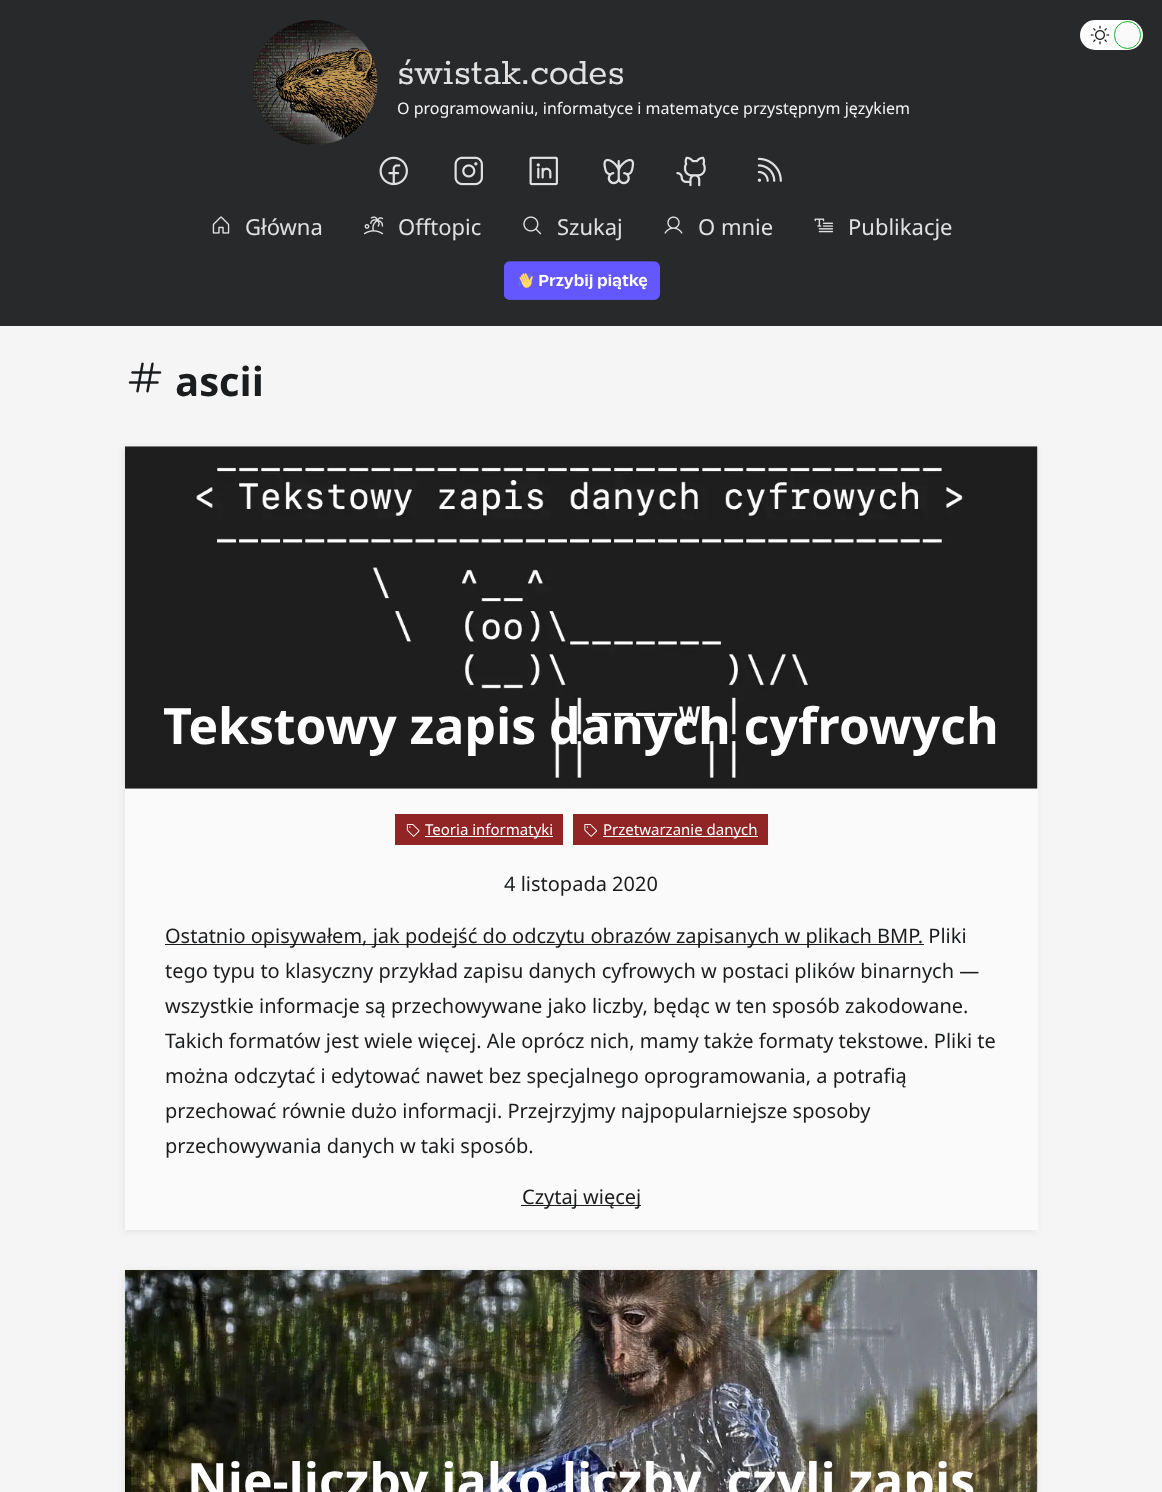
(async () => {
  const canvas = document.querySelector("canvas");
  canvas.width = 1162;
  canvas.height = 1492;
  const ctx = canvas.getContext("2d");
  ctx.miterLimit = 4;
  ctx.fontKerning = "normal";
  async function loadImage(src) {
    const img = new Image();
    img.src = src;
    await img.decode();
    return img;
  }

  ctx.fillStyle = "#27292b";
  ctx.fillRect(0, 0, 1162, 1492);
  ctx.fillStyle = "#ffffff";
  ctx.beginPath();
  ctx.roundRect(1080, 20, 63, 30, 15);
  ctx.fill();
  ctx.drawImage(await loadImage("img/1.png"), 1090, 25, 20, 20);
  ctx.fillStyle = "#fafafa";
  ctx.beginPath();
  ctx.roundRect(1114.5, 21.5, 26, 27, 13);
  ctx.fill();
  ctx.strokeStyle = "#19ab27";
  ctx.stroke();
  ctx.drawImage(await loadImage("img/2.png"), 252, 20, 126, 125);
  ctx.drawImage(await loadImage("img/3.png"), 379, 156, 29, 30);
  ctx.drawImage(await loadImage("img/4.png"), 454, 156, 29, 30);
  ctx.drawImage(await loadImage("img/5.png"), 529, 156, 29, 30);
  ctx.drawImage(await loadImage("img/6.png"), 603, 158, 32, 27);
  ctx.drawImage(await loadImage("img/7.png"), 676, 156, 30, 31);
  ctx.drawImage(await loadImage("img/8.png"), 757, 157, 25, 25);
  ctx.drawImage(await loadImage("img/9.png"), 212, 216, 18, 18);
  ctx.drawImage(await loadImage("img/10.png"), 363, 216, 21, 19);
  ctx.drawImage(await loadImage("img/11.png"), 523, 216, 19, 19);
  ctx.drawImage(await loadImage("img/12.png"), 664, 216, 19, 18);
  ctx.drawImage(await loadImage("img/13.png"), 814, 218, 20, 15);
  ctx.drawImage(await loadImage("img/14.png"), 504, 261, 156, 39);
  ctx.fillStyle = "#f5f5f5";
  ctx.fillRect(0, 326, 1162, 1166);
  ctx.drawImage(await loadImage("img/15.png"), 128, 362, 34, 31);
  ctx.fillStyle = "#e1e1e1";
  ctx.filter = "blur(3px)";
  ctx.beginPath();
  ctx.rect(124, 448, 912, 783);
  ctx.fill();
  ctx.filter = "none";
  ctx.fillStyle = "#fafafa";
  ctx.fillRect(125, 446, 913, 784);
  ctx.drawImage(await loadImage("img/16.png"), 125, 446, 913, 343);
  ctx.fillStyle = "#912525";
  ctx.fillRect(395, 814, 168, 31);
  ctx.drawImage(await loadImage("img/17.png"), 406, 824, 14, 13);
  ctx.fillStyle = "#ffffff";
  ctx.fillRect(425, 836, 128, 1);
  ctx.fillStyle = "#912525";
  ctx.fillRect(573, 814, 195, 31);
  ctx.drawImage(await loadImage("img/18.png"), 584, 824, 13, 13);
  for (const [x, y, w, h, color] of [
    [603, 836, 155, 1, "#ffffff"],
    [165, 944, 759, 1, "#1b1c1e"],
    [521, 1205, 120, 1, "#1b1c1e"],
  ]) {
    ctx.fillStyle = color;
    ctx.fillRect(x, y, w, h);
  }
  ctx.fillStyle = "#e1e1e1";
  ctx.filter = "blur(3px)";
  ctx.beginPath();
  ctx.rect(124, 1271, 912, 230);
  ctx.fill();
  ctx.filter = "none";
  ctx.fillStyle = "#fafafa";
  ctx.fillRect(1037, 1270, 1, 222);
  ctx.drawImage(await loadImage("img/19.png"), 125, 1270, 913, 222);
  ctx.font = "40px Rokkitt";
  ctx.fillStyle = "#e1e1e1";
  ctx.fillText("świstak.codes", 397, 84);
  ctx.font = "16px Noto Sans";
  ctx.fillStyle = "#f5f5f5";
  ctx.fillText("O programowaniu, informatyce i matematyce przystępnym językiem", 397, 114);
  ctx.font = "22px Noto Sans";
  ctx.fillStyle = "#e1e1e1";
  for (const [text, x, y] of [
    ["Główna", 245, 235],
    ["Offtopic", 398, 235],
    ["Szukaj", 557, 235],
    ["O mnie", 698, 235],
    ["Publikacje", 848, 235],
  ]) {
    ctx.fillText(text, x, y);
  }
  ctx.font = "bold 40px Noto Sans";
  ctx.fillStyle = "#1b1c1e";
  ctx.fillText("ascii", 175, 396);
  ctx.font = "bold 50px Noto Sans";
  ctx.fillStyle = "#ffffff";
  ctx.fillText("Tekstowy zapis danych cyfrowych", 163, 744);
  ctx.font = "15px Noto Sans";
  ctx.fillText("Teoria informatyki", 425, 835);
  ctx.fillText("Przetwarzanie danych", 603, 835);
  ctx.font = "20px Noto Sans";
  ctx.fillStyle = "#1b1c1e";
  for (const [text, x, y] of [
    ["4 listopada 2020", 504, 891],
    ["Ostatnio opisywałem, jak podejść do odczytu obrazów zapisanych w plikach BMP. Pliki", 165, 943],
    ["tego typu to klasyczny przykład zapisu danych cyfrowych w postaci plików binarnych —", 165, 978],
    ["wszystkie informacje są przechowywane jako liczby, będąc w ten sposób zakodowane.", 165, 1013],
    ["Takich formatów jest wiele więcej. Ale oprócz nich, mamy także formaty tekstowe. Pliki te", 165, 1048],
    ["można odczytać i edytować nawet bez specjalnego oprogramowania, a potrafią", 165, 1083],
    ["przechować równie dużo informacji. Przejrzyjmy najpopularniejsze sposoby", 165, 1118],
    ["przechowywania danych w taki sposób.", 165, 1153],
    ["Czytaj więcej", 522, 1204],
  ]) {
    ctx.fillText(text, x, y);
  }
  ctx.font = "bold 50px Noto Sans";
  ctx.fillStyle = "#ffffff";
  ctx.fillText("Nie-liczby jako liczby, czyli zapis", 187, 1499);
})();
